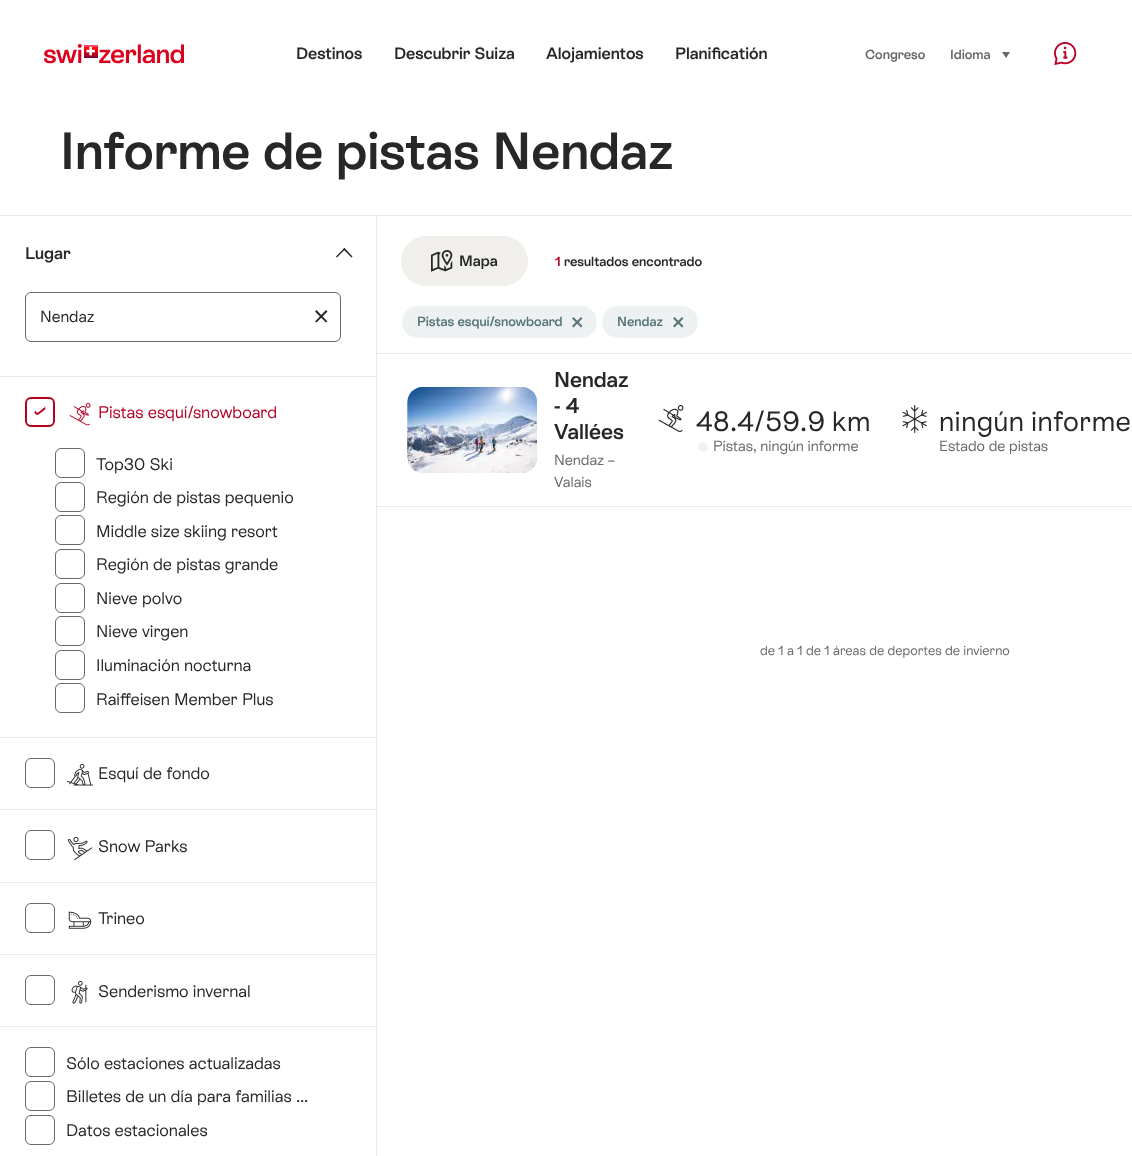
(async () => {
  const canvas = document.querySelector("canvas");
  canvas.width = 1132;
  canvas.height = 1156;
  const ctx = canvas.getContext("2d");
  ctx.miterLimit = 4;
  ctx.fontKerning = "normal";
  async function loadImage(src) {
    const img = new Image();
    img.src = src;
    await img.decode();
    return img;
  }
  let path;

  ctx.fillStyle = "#ffffff";
  ctx.fillRect(0, 0, 1132, 1156);
  ctx.drawImage(await loadImage("img/1.png"), 44, 44, 140, 20);
  ctx.fillStyle = "#686867";
  path = new Path2D("M1002 52H1010L1006 58Z");
  ctx.fill(path);
  ctx.drawImage(await loadImage("img/2.png"), 1054, 42, 23, 23);
  for (const [x, y, w, h, color] of [
    [0, 215, 1132, 1, "#e9e9e9"],
    [376, 216, 1, 940, "#e9e9e9"],
    [0, 376, 376, 1, "#e9e9e9"],
  ]) {
    ctx.fillStyle = color;
    ctx.fillRect(x, y, w, h);
  }
  ctx.fillStyle = "#272726";
  path = new Path2D("M344.5 248L352.5 256.5L351.5 257.5L343 249Z");
  ctx.fill(path);
  path = new Path2D("M344.5 248L345.5 249L337 257.5L336 256.5Z");
  ctx.fill(path);
  ctx.beginPath();
  ctx.roundRect(25.5, 292.5, 315, 49, 5.5);
  ctx.strokeStyle = "#686867";
  ctx.stroke();
  path = new Path2D("M316.5 310L327.5 321.5L326 322.5L315 311.5Z");
  ctx.fill(path);
  path = new Path2D("M315 321.5L326 310L327.5 311.5L316.5 322.5Z");
  ctx.fill(path);
  ctx.fillStyle = "#e9e9e9";
  ctx.fillRect(0, 737, 376, 1);
  ctx.beginPath();
  ctx.roundRect(26, 398, 28, 28, 5);
  ctx.strokeStyle = "#b50024";
  ctx.lineWidth = 2;
  ctx.stroke();
  ctx.fillStyle = "#b50024";
  path = new Path2D("M35.5 410.5L42 406C43 405.5 44 406 44.5 406.5C47 408.5 44 410.5 42.5 411.5L38.5 414.5C36 416 33 412 35.5 410.5ZM35.5 410.5L42 406C42.5 405.5 45 406 45 407L43 408.5L39.5 411.5C37.5 412.5 37.5 413.5 36 412Z");
  ctx.fill(path, "evenodd");
  ctx.drawImage(await loadImage("img/3.png"), 69, 402, 22, 24);
  ctx.beginPath();
  ctx.roundRect(55.5, 448.5, 29, 29, 5.5);
  ctx.strokeStyle = "#686867";
  ctx.lineWidth = 1;
  ctx.stroke();
  ctx.beginPath();
  ctx.roundRect(55.5, 482.5, 29, 29, 5.5);
  ctx.stroke();
  ctx.beginPath();
  ctx.roundRect(55.5, 515.5, 29, 29, 5.5);
  ctx.stroke();
  ctx.beginPath();
  ctx.roundRect(55.5, 549.5, 29, 29, 5.5);
  ctx.stroke();
  ctx.beginPath();
  ctx.roundRect(55.5, 583.5, 29, 29, 5.5);
  ctx.stroke();
  ctx.beginPath();
  ctx.roundRect(55.5, 616.5, 29, 29, 5.5);
  ctx.stroke();
  ctx.beginPath();
  ctx.roundRect(55.5, 650.5, 29, 29, 5.5);
  ctx.stroke();
  ctx.beginPath();
  ctx.roundRect(55.5, 683.5, 29, 29, 5.5);
  ctx.stroke();
  ctx.fillStyle = "#e9e9e9";
  ctx.fillRect(0, 809, 376, 1);
  ctx.beginPath();
  ctx.roundRect(25.5, 758.5, 29, 29, 5.5);
  ctx.stroke();
  ctx.drawImage(await loadImage("img/4.png"), 67, 764, 27, 22);
  ctx.fillRect(0, 882, 376, 1);
  ctx.beginPath();
  ctx.roundRect(25.5, 830.5, 29, 29, 5.5);
  ctx.stroke();
  ctx.drawImage(await loadImage("img/5.png"), 67, 837, 26, 24);
  ctx.fillRect(0, 954, 376, 1);
  ctx.beginPath();
  ctx.roundRect(25.5, 903.5, 29, 29, 5.5);
  ctx.stroke();
  ctx.drawImage(await loadImage("img/6.png"), 68, 911, 24, 18);
  ctx.fillRect(0, 1026, 376, 1);
  ctx.beginPath();
  ctx.roundRect(25.5, 975.5, 29, 29, 5.5);
  ctx.stroke();
  ctx.drawImage(await loadImage("img/7.png"), 71, 980, 17, 24);
  ctx.beginPath();
  ctx.roundRect(25.5, 1047.5, 29, 29, 5.5);
  ctx.stroke();
  ctx.beginPath();
  ctx.roundRect(25.5, 1081.5, 29, 29, 5.5);
  ctx.stroke();
  ctx.beginPath();
  ctx.roundRect(25.5, 1115.5, 29, 29, 5.5);
  ctx.stroke();
  ctx.fillStyle = "#f0efeb";
  ctx.beginPath();
  ctx.roundRect(401, 236, 127, 50, 25);
  ctx.fill();
  ctx.drawImage(await loadImage("img/8.png"), 431, 250, 22, 22);
  ctx.fillStyle = "#eef1f2";
  ctx.beginPath();
  ctx.roundRect(402, 306, 195, 32, 16);
  ctx.fill();
  ctx.fillStyle = "#577678";
  path = new Path2D("M573.5 317L582.5 326L581 327.5L572 318.5Z");
  ctx.fill(path);
  path = new Path2D("M572 326L581 317L582.5 318.5L573.5 327.5Z");
  ctx.fill(path);
  ctx.fillStyle = "#eef1f2";
  ctx.beginPath();
  ctx.roundRect(602, 306, 96, 32, 16);
  ctx.fill();
  ctx.fillStyle = "#577678";
  path = new Path2D("M674.5 317L683.5 326L682 327.5L673 318.5Z");
  ctx.fill(path);
  path = new Path2D("M673 326L682 317L683.5 318.5L674.5 327.5Z");
  ctx.fill(path);
  ctx.fillStyle = "#e9e9e9";
  ctx.fillRect(377, 353, 755, 1);
  ctx.fillRect(377, 506, 755, 1);
  ctx.drawImage(await loadImage("img/9.png"), 407, 387, 130, 86);
  ctx.drawImage(await loadImage("img/10.png"), 658, 405, 26, 27);
  ctx.fillStyle = "#f2f2f2";
  ctx.beginPath();
  ctx.arc(703, 447, 5, 0, Math.PI * 2);
  ctx.fill();
  ctx.drawImage(await loadImage("img/11.png"), 902, 405, 25, 28);
  ctx.font = "600 16.5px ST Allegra";
  ctx.fillStyle = "#272726";
  for (const [text, x, y] of [
    ["Destinos", 296, 59],
    ["Descubrir Suiza", 394, 59],
    ["Alojamientos", 546, 59],
    ["Planificatión", 675, 59],
  ]) {
    ctx.fillText(text, x, y);
  }
  ctx.font = "600 13.25px ST Allegra";
  ctx.fillStyle = "#686867";
  ctx.fillText("Congreso", 865, 59);
  ctx.fillText("Idioma", 950, 59);
  ctx.font = "600 52.25px ST Allegra";
  ctx.fillStyle = "#272726";
  ctx.fillText("Informe de pistas Nendaz", 60, 169);
  ctx.font = "600 16.8px ST Allegra";
  ctx.fillText("Lugar", 25, 259);
  ctx.font = "16px ST Allegra";
  ctx.fillText("Nendaz", 40, 322);
  ctx.font = "16.8px ST Allegra";
  ctx.fillStyle = "#b50024";
  ctx.fillText("Pistas esquí/snowboard", 98, 418);
  ctx.fillStyle = "#272726";
  for (const [text, x, y] of [
    ["Top30 Ski", 96, 470],
    ["Región de pistas pequenio", 96, 503],
    ["Middle size skiing resort", 96, 537],
    ["Región de pistas grande", 96, 570],
    ["Nieve polvo", 96, 604],
    ["Nieve virgen", 96, 637],
    ["Iluminación nocturna", 96, 671],
    ["Raiffeisen Member Plus", 96, 705],
    ["Esquí de fondo", 98, 779],
    ["Snow Parks", 98, 852],
    ["Trineo", 98, 924],
    ["Senderismo invernal", 98, 997],
    ["Sólo estaciones actualizadas", 66, 1069],
    ["Billetes de un día para familias …", 66, 1102],
    ["Datos estacionales", 66, 1136],
  ]) {
    ctx.fillText(text, x, y);
  }
  ctx.font = "600 15px ST Allegra";
  ctx.fillText("Mapa", 459, 266);
  ctx.font = "600 13.25px ST Allegra";
  ctx.fillStyle = "#b50024";
  ctx.fillText("1", 555, 266);
  ctx.fillStyle = "#272726";
  ctx.fillText("resultados encontrado", 564, 266);
  ctx.fillStyle = "#577678";
  ctx.fillText("Pistas esquí/snowboard", 417, 326);
  ctx.fillText("Nendaz", 617, 326);
  ctx.font = "600 21.5px ST Allegra";
  ctx.fillStyle = "#272726";
  for (const [text, x, y] of [
    ["Nendaz", 554, 387],
    ["- 4", 554, 413],
    ["Vallées", 554, 439],
  ]) {
    ctx.fillText(text, x, y);
  }
  ctx.font = "14.75px ST Allegra";
  ctx.fillStyle = "#686867";
  ctx.fillText("Nendaz –", 554, 465);
  ctx.fillText("Valais", 554, 487);
  ctx.letterSpacing = "0.5px";
  ctx.wordSpacing = "-1px";
  ctx.font = "28px ST Allegra";
  ctx.fillStyle = "#272726";
  ctx.fillText("48.4/59.9 km", 696, 431);
  ctx.letterSpacing = "0px";
  ctx.wordSpacing = "0px";
  ctx.font = "14.75px ST Allegra";
  ctx.fillStyle = "#686867";
  ctx.fillText("Pistas, ningún informe", 713, 451);
  ctx.letterSpacing = "0.5px";
  ctx.wordSpacing = "-1px";
  ctx.font = "28px ST Allegra";
  ctx.fillStyle = "#272726";
  ctx.fillText("ningún informe", 939, 431);
  ctx.letterSpacing = "0px";
  ctx.wordSpacing = "0px";
  ctx.font = "14.75px ST Allegra";
  ctx.fillStyle = "#686867";
  ctx.fillText("Estado de pistas", 939, 451);
  ctx.font = "13.25px ST Allegra";
  ctx.fillText("de 1 a 1 de 1 áreas de deportes de invierno", 760, 655);
})();
